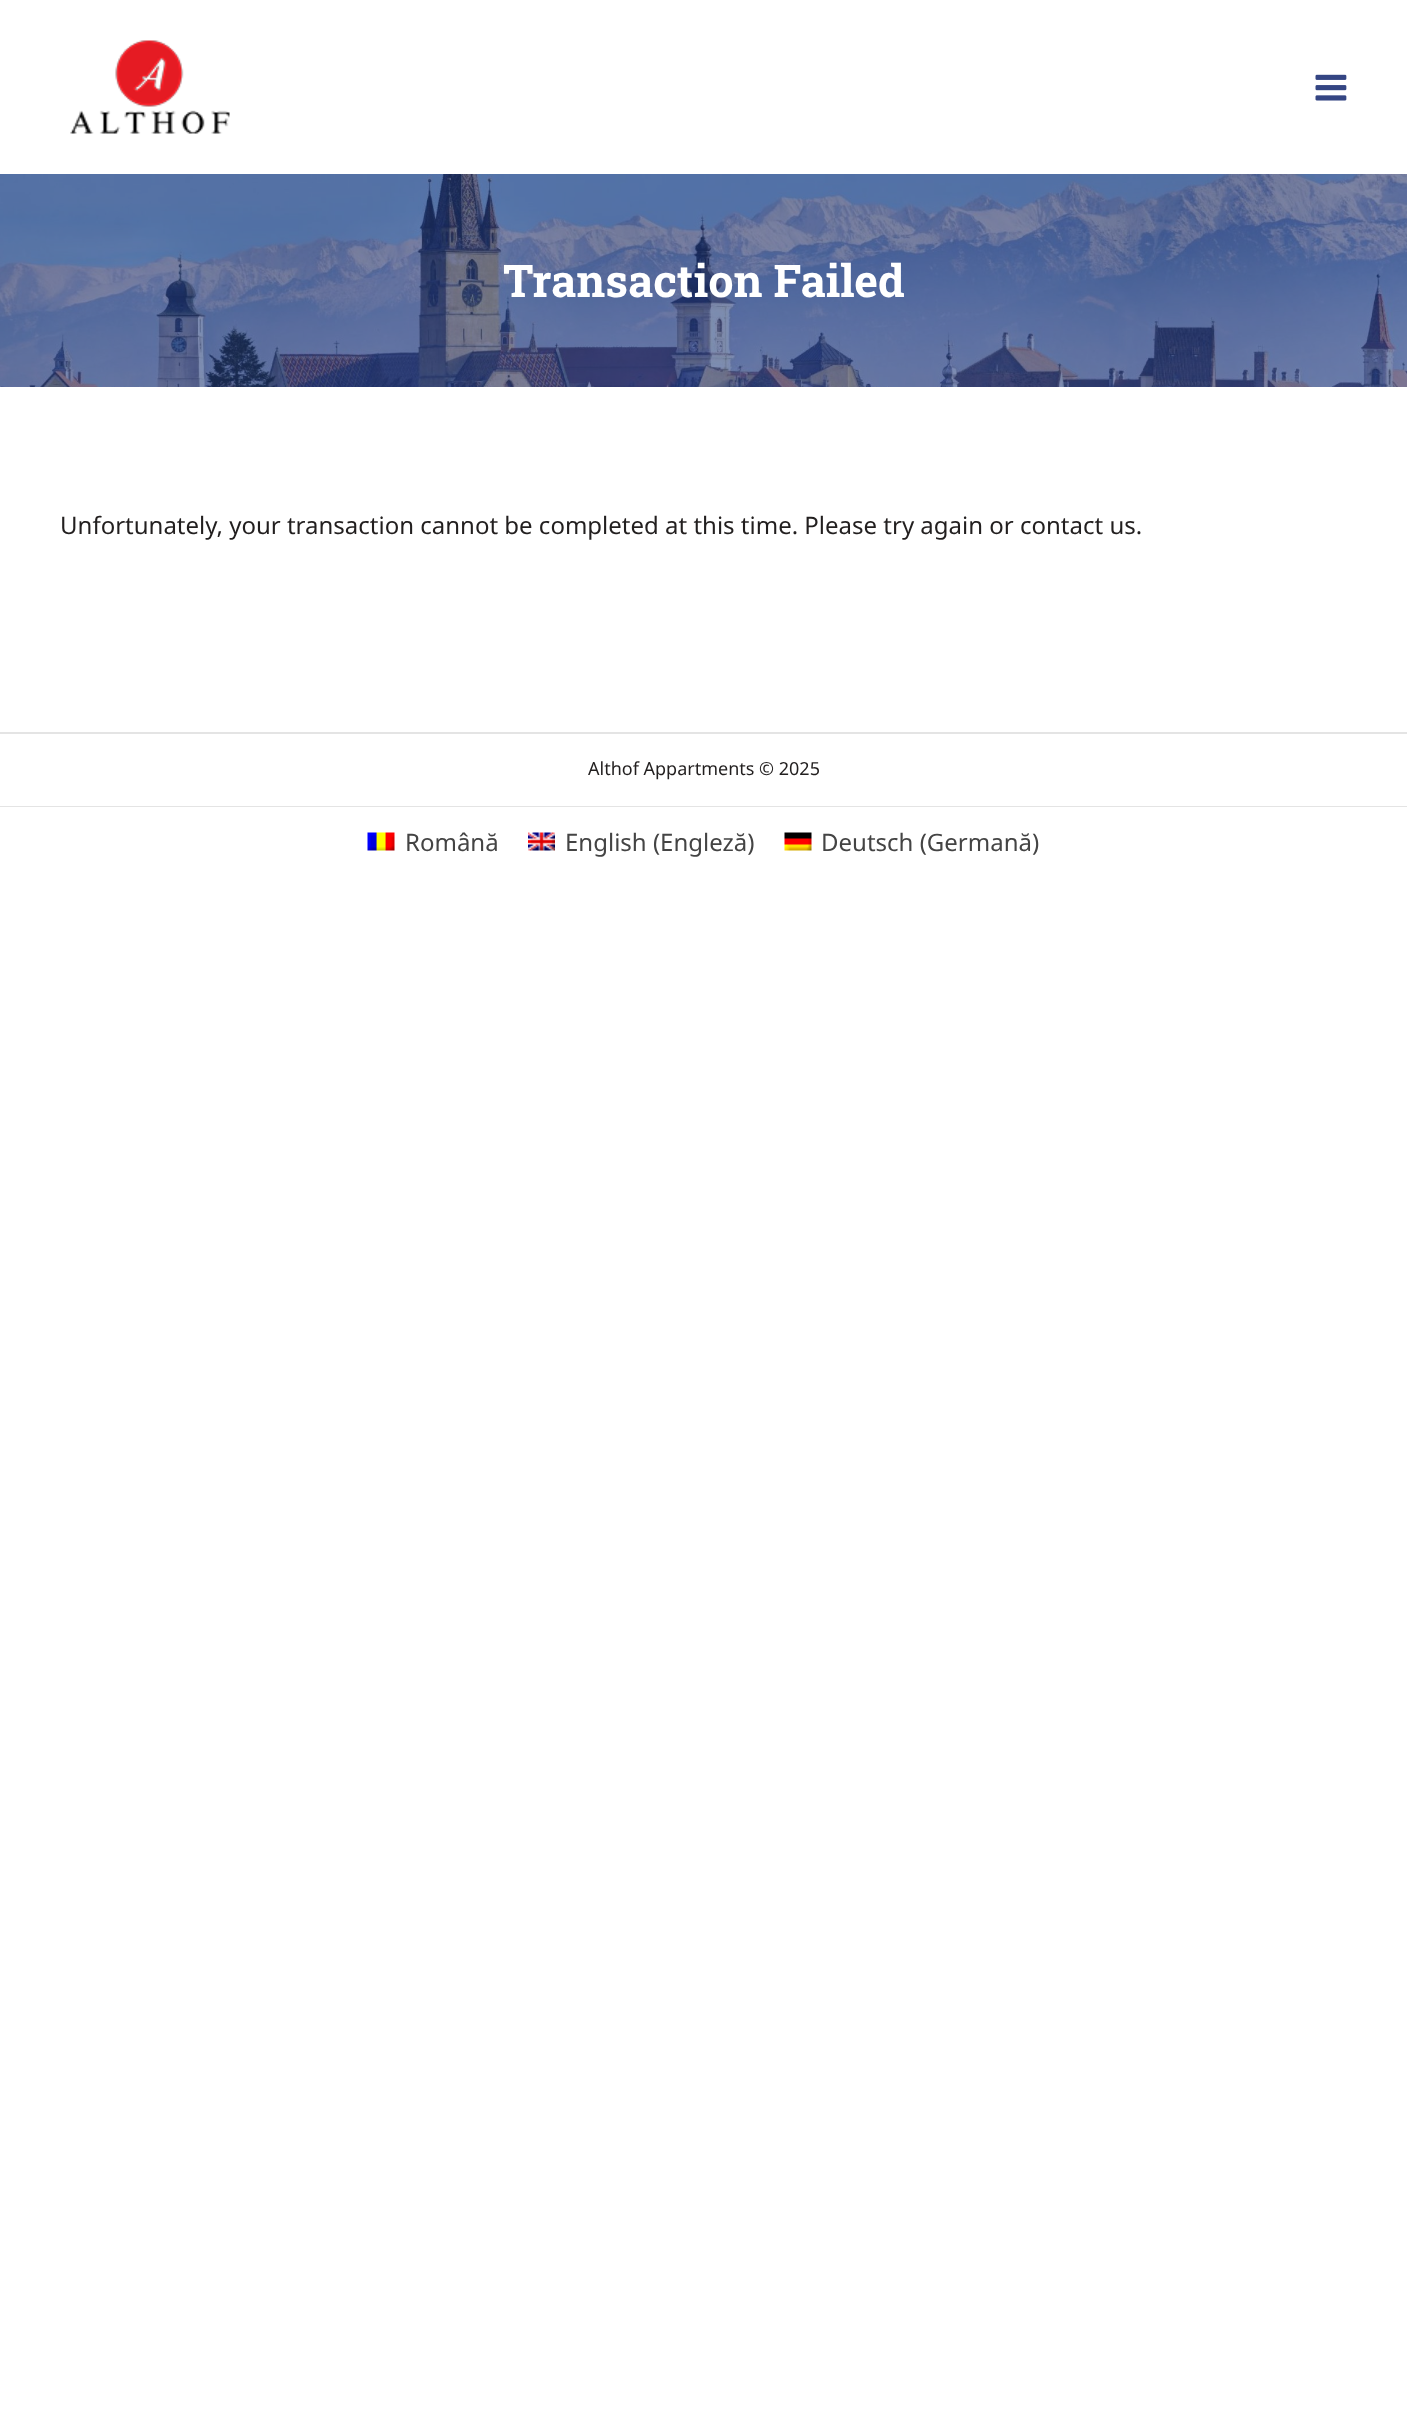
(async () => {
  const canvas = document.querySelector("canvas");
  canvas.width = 1407;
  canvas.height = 2427;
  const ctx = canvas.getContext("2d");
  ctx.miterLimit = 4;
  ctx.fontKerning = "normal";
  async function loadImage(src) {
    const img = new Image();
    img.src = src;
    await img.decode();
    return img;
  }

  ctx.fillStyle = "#ffffff";
  ctx.fillRect(0, 0, 1407, 2427);
  ctx.drawImage(await loadImage("img/1.png"), 70, 40, 160, 94);
  ctx.drawImage(await loadImage("img/2.png"), 1315, 74, 32, 27);
  ctx.drawImage(await loadImage("img/3.png"), 0, 174, 1407, 213);
  ctx.fillStyle = "#e4e4e4";
  ctx.fillRect(0, 732, 1407, 2);
  ctx.fillRect(0, 806, 1407, 1);
  ctx.drawImage(await loadImage("img/4.png"), 367, 832, 28, 19);
  ctx.drawImage(await loadImage("img/5.png"), 528, 832, 27, 19);
  ctx.drawImage(await loadImage("img/6.png"), 784, 832, 28, 19);
  ctx.font = "bold 45px Roboto Slab";
  ctx.fillStyle = "#ffffff";
  ctx.fillText("Transaction Failed", 503, 297);
  ctx.font = "24px Noto Sans";
  ctx.fillStyle = "#221f1f";
  ctx.fillText("Unfortunately, your transaction cannot be completed at this time. Please try again or contact us.", 60, 534);
  ctx.font = "18px Noto Sans";
  ctx.fillText("Althof Appartments © 2025", 588, 775);
  ctx.font = "24px Noto Sans";
  ctx.fillStyle = "#444444";
  for (const [text, x, y] of [
    ["Română", 405, 851],
    ["English (Engleză)", 565, 851],
    ["Deutsch (Germană)", 821, 851],
  ]) {
    ctx.fillText(text, x, y);
  }
})();
